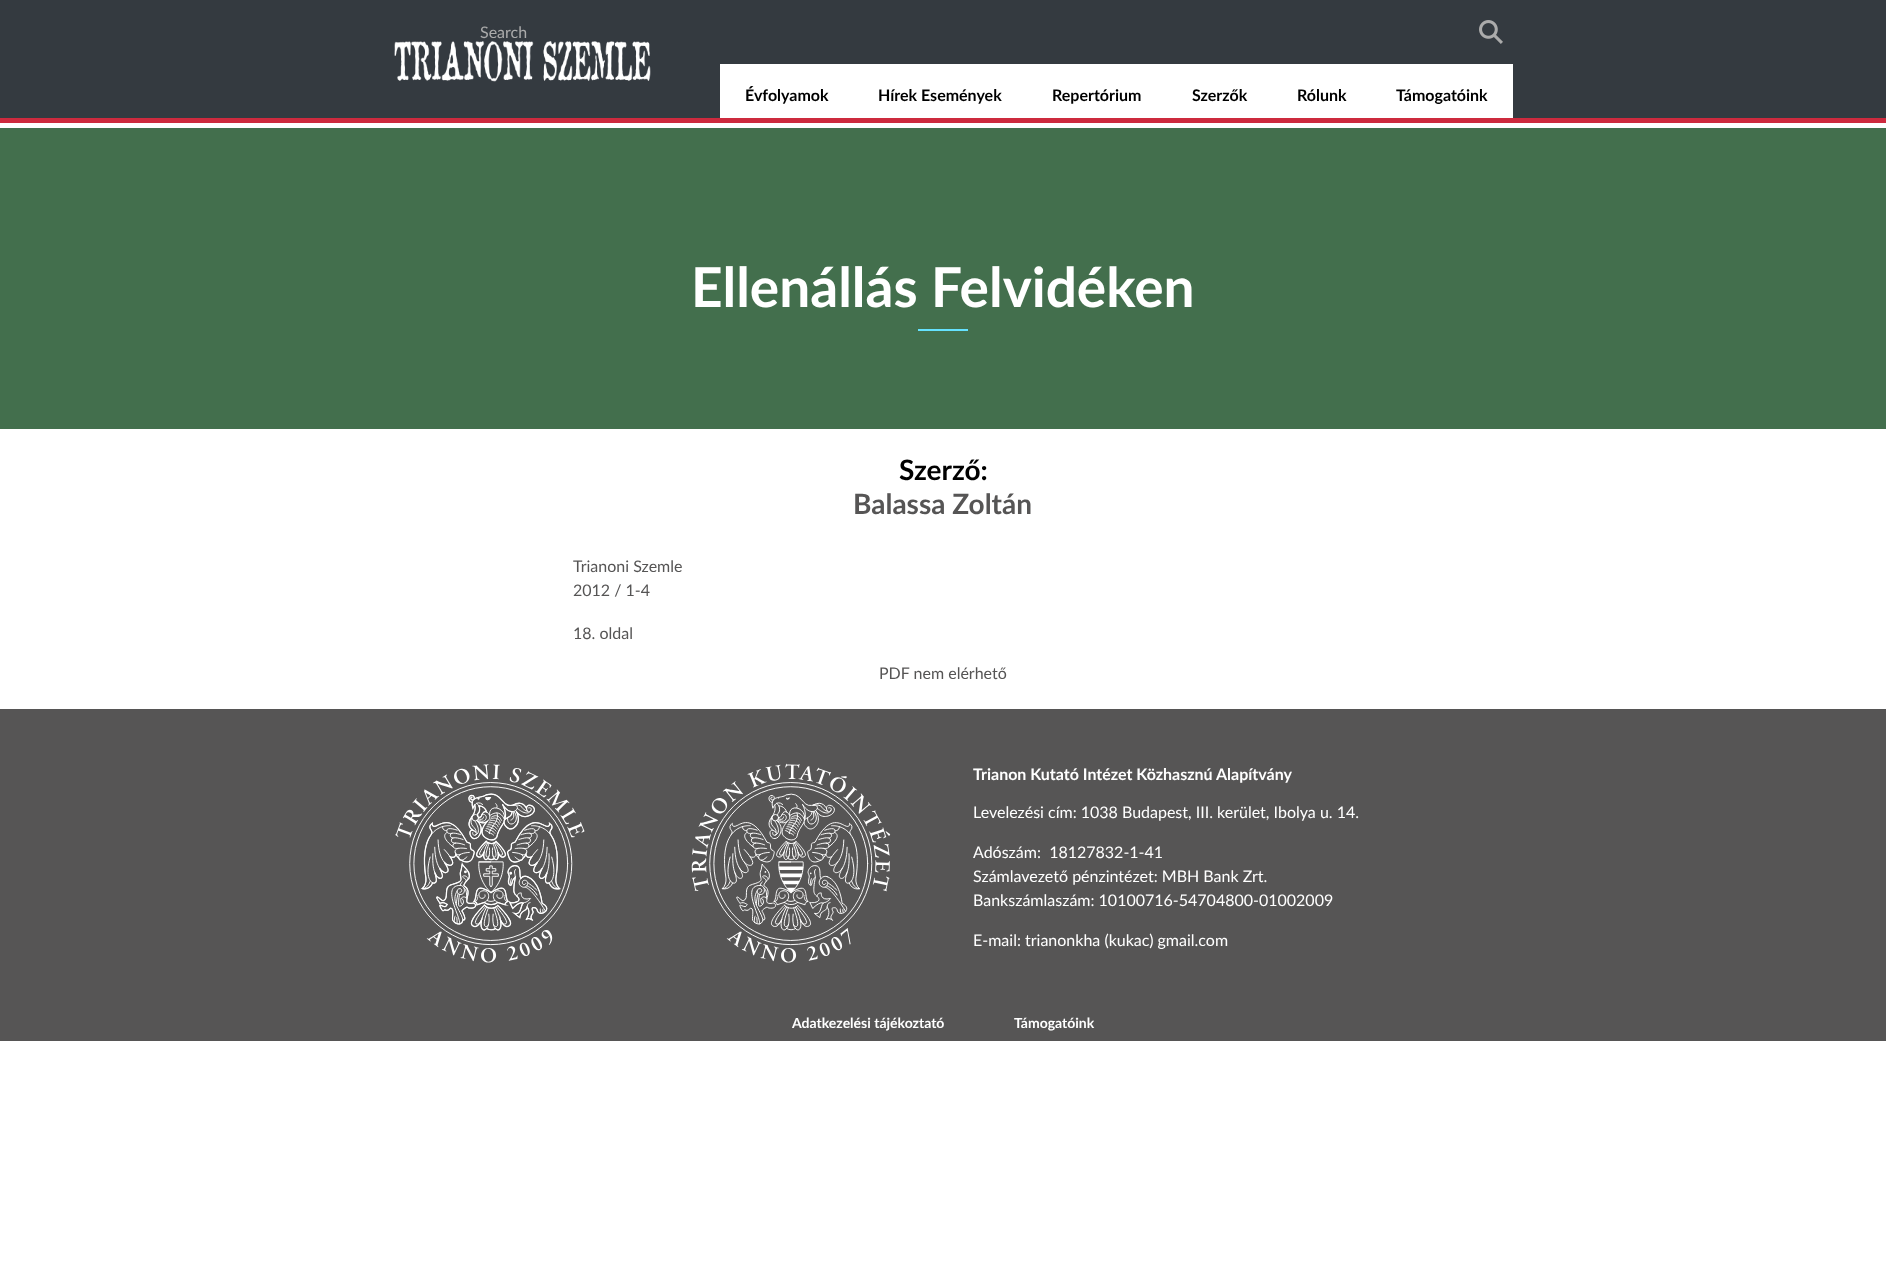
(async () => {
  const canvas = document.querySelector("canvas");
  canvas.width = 1886;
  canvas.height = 1284;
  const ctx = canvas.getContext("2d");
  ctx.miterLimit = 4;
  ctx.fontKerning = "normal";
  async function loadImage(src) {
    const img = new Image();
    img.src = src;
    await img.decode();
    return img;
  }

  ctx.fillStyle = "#ffffff";
  ctx.fillRect(0, 0, 1886, 1284);
  ctx.fillStyle = "#343a40";
  ctx.fillRect(0, 0, 1886, 118);
  ctx.drawImage(await loadImage("img/1.png"), 1479, 20, 24, 24);
  ctx.fillStyle = "#ffffff";
  ctx.fillRect(720, 64, 793, 54);
  ctx.drawImage(await loadImage("img/2.png"), 394, 41, 257, 41);
  ctx.drawImage(await loadImage("img/3.png"), 0, 118, 1886, 15);
  for (const [x, y, w, h, color] of [
    [0, 133, 1886, 296, "#436f4d"],
    [918, 329, 50, 2, "#65e2ff"],
    [0, 709, 1886, 332, "#565555"],
  ]) {
    ctx.fillStyle = color;
    ctx.fillRect(x, y, w, h);
  }
  ctx.drawImage(await loadImage("img/4.png"), 395, 764, 190, 199);
  ctx.drawImage(await loadImage("img/5.png"), 691, 763, 200, 200);
  ctx.font = "16px Lato";
  ctx.fillStyle = "#ababab";
  ctx.fillText("Search", 480, 38);
  ctx.font = "bold 16px Lato";
  ctx.fillStyle = "#000000";
  for (const [text, x, y] of [
    ["Évfolyamok", 745, 101],
    ["Hírek Események", 878, 101],
    ["Repertórium", 1052, 101],
    ["Szerzők", 1192, 101],
    ["Rólunk", 1297, 101],
    ["Támogatóink", 1396, 101],
  ]) {
    ctx.fillText(text, x, y);
  }
  ctx.font = "bold 55px Lato";
  ctx.fillStyle = "#ffffff";
  ctx.fillText("Ellenállás Felvidéken", 691, 307);
  ctx.font = "bold 28px Lato";
  ctx.fillStyle = "#000000";
  ctx.fillText("Szerző:", 899, 480);
  ctx.fillStyle = "#565555";
  ctx.fillText("Balassa Zoltán", 853, 514);
  ctx.font = "16px Lato";
  for (const [text, x, y] of [
    ["Trianoni Szemle", 573, 572],
    ["2012 / 1-4", 573, 596],
    ["18. oldal", 573, 639],
    ["PDF nem elérhető", 879, 679],
  ]) {
    ctx.fillText(text, x, y);
  }
  ctx.font = "bold 16px Lato";
  ctx.fillStyle = "#ffffff";
  ctx.fillText("Trianon Kutató Intézet Közhasznú Alapítvány", 973, 780);
  ctx.font = "16px Lato";
  for (const [text, x, y] of [
    ["Levelezési cím: 1038 Budapest, III. kerület, Ibolya u. 14.", 973, 818],
    ["Adószám:  18127832-1-41", 973, 858],
    ["Számlavezető pénzintézet: MBH Bank Zrt.", 973, 882],
    ["Bankszámlaszám: 10100716-54704800-01002009", 973, 906],
    ["E-mail: trianonkha (kukac) gmail.com", 973, 946],
  ]) {
    ctx.fillText(text, x, y);
  }
  ctx.font = "bold 14px Lato";
  ctx.fillText("Adatkezelési tájékoztató", 792, 1028);
  ctx.fillText("Támogatóink", 1014, 1028);
})();
